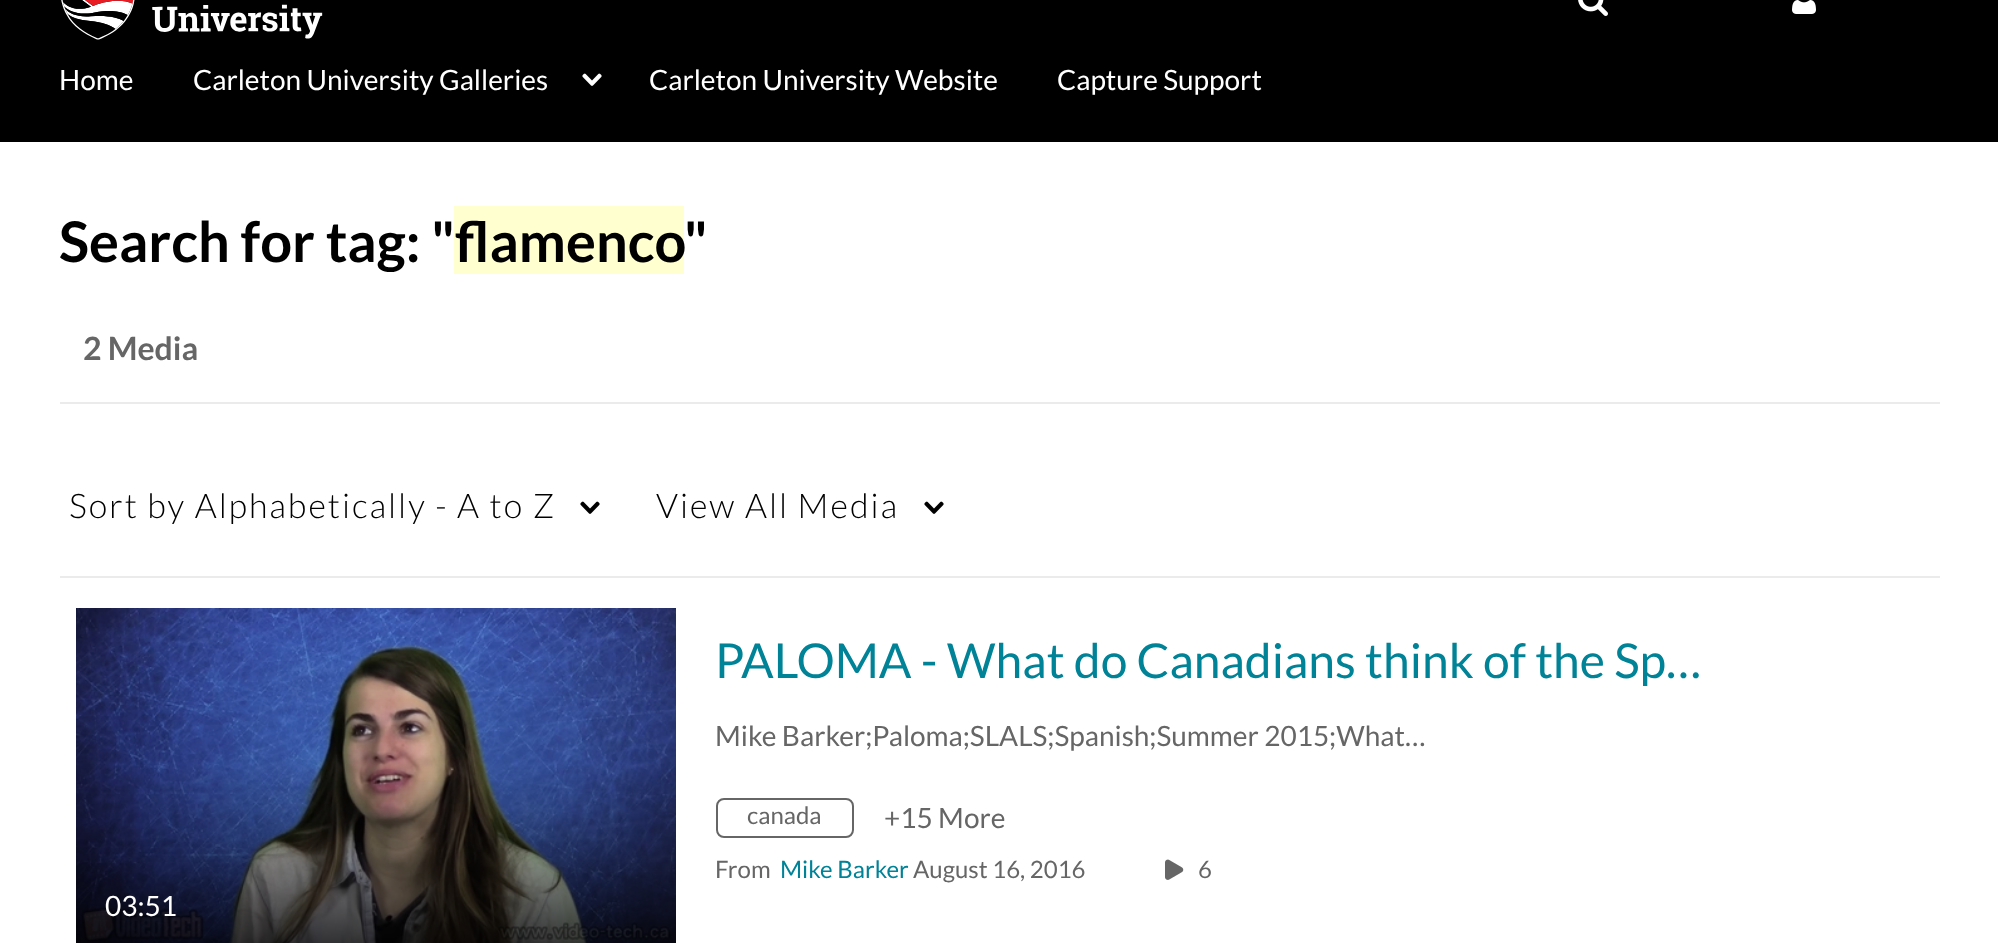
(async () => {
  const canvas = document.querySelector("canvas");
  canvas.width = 1998;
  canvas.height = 943;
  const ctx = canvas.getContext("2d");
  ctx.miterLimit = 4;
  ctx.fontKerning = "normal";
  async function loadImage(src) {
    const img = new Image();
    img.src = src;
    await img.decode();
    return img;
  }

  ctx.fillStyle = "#ffffff";
  ctx.fillRect(0, 0, 1998, 943);
  ctx.fillStyle = "#000000";
  ctx.fillRect(0, 0, 1998, 142);
  ctx.drawImage(await loadImage("img/1.png"), 61, 0, 262, 40);
  ctx.drawImage(await loadImage("img/2.png"), 1578, 0, 30, 16);
  ctx.drawImage(await loadImage("img/3.png"), 1792, 0, 24, 14);
  ctx.drawImage(await loadImage("img/4.png"), 582, 73, 20, 13);
  ctx.fillStyle = "#ffffcf";
  ctx.fillRect(454, 206, 230, 68);
  ctx.fillStyle = "#ebebeb";
  ctx.fillRect(60, 402, 1880, 2);
  ctx.drawImage(await loadImage("img/5.png"), 580, 501, 20, 13);
  ctx.drawImage(await loadImage("img/5.png"), 924, 501, 20, 13);
  ctx.fillRect(60, 576, 1880, 2);
  ctx.beginPath();
  ctx.roundRect(717, 799, 136, 38, 7);
  ctx.strokeStyle = "#666666";
  ctx.lineWidth = 2;
  ctx.stroke();
  ctx.drawImage(await loadImage("img/6.png"), 1165, 859, 19, 21);
  ctx.drawImage(await loadImage("img/7.png"), 76, 608, 600, 335);
  ctx.font = "28px Lato";
  ctx.fillStyle = "#ffffff";
  for (const [text, x, y] of [
    ["Home", 59, 90],
    ["Carleton University Galleries", 193, 90],
    ["Carleton University Website", 649, 90],
    ["Capture Support", 1057, 90],
  ]) {
    ctx.fillText(text, x, y);
  }
  ctx.font = "bold 56px Lato";
  ctx.fillStyle = "#000000";
  for (const [text, x, y] of [
    ["Search for tag: \"", 59, 262],
    ["flamenco", 455, 262],
    ["\"", 684, 262],
  ]) {
    ctx.fillText(text, x, y);
  }
  ctx.font = "bold 32px Lato";
  ctx.fillStyle = "#666666";
  ctx.fillText("2 Media", 83, 360);
  ctx.letterSpacing = "2px";
  ctx.font = "300 34px Lato";
  ctx.fillStyle = "#000000";
  ctx.fillText("Sort by Alphabetically - A to Z", 69, 518);
  ctx.fillText("View All Media", 656, 518);
  ctx.save();
  ctx.beginPath();
  ctx.rect(716, 632, 998, 54);
  ctx.clip();
  ctx.letterSpacing = "0px";
  ctx.font = "48px Lato";
  ctx.fillStyle = "#008297";
  ctx.fillText("PALOMA - What do Canadians think of the Sp…", 715, 678);
  ctx.restore();
  ctx.letterSpacing = "0px";
  ctx.font = "28px Lato";
  ctx.fillStyle = "#666666";
  ctx.fillText("Mike Barker;Paloma;SLALS;Spanish;Summer 2015;What…", 715, 746);
  ctx.font = "24px Lato";
  ctx.fillText("canada", 747, 824);
  ctx.font = "28px Lato";
  ctx.fillText("+15 More", 884, 828);
  ctx.font = "24px Lato";
  ctx.fillText("From", 715, 878);
  ctx.fillStyle = "#008297";
  ctx.fillText("Mike Barker", 780, 878);
  ctx.fillStyle = "#666666";
  ctx.fillText("August 16, 2016", 913, 878);
  ctx.fillText("6", 1198, 878);
  ctx.font = "28px Lato";
  ctx.fillStyle = "#ffffff";
  ctx.fillText("03:51", 105, 916);
})();
